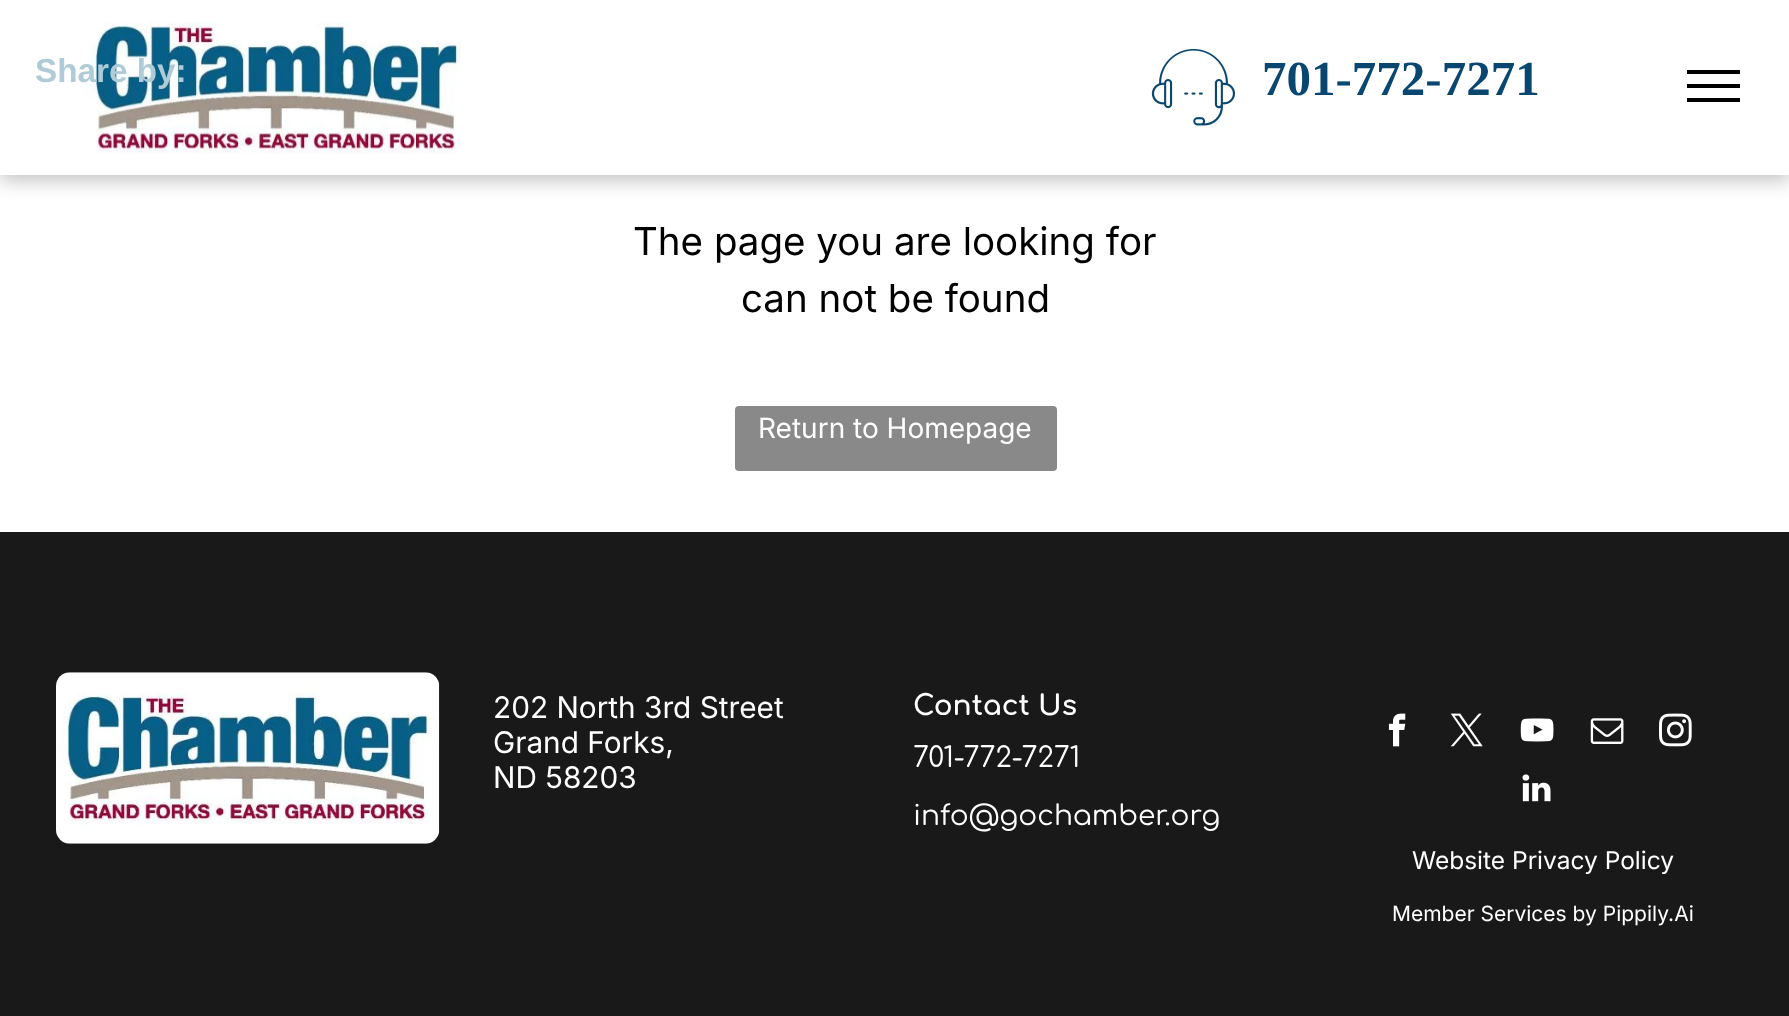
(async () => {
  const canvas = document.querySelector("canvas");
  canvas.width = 1789;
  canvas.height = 1016;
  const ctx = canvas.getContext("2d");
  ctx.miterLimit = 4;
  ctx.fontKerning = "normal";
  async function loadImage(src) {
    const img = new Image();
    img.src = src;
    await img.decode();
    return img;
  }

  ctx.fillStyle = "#ffffff";
  ctx.fillRect(0, 0, 1789, 1016);
  ctx.fillStyle = "rgba(0, 0, 0, 0.25)";
  ctx.filter = "blur(9.5px)";
  ctx.beginPath();
  ctx.rect(0, 5, 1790, 175);
  ctx.fill();
  ctx.filter = "none";
  ctx.fillStyle = "#ffffff";
  ctx.fillRect(0, 0, 1789, 175);
  ctx.drawImage(await loadImage("img/1.png"), 84, 22, 377, 132);
  ctx.drawImage(await loadImage("img/2.png"), 1151, 49, 84, 77);
  for (const [x, y, w, h, color] of [
    [1687, 70, 53, 4, "#000000"],
    [1687, 84, 53, 4, "#000000"],
    [1687, 98, 53, 4, "#000000"],
  ]) {
    ctx.fillStyle = color;
    ctx.fillRect(x, y, w, h);
  }
  ctx.fillStyle = "#898989";
  ctx.beginPath();
  ctx.roundRect(735, 406, 322, 65, 4);
  ctx.fill();
  ctx.fillStyle = "#191919";
  ctx.fillRect(0, 532, 1789, 484);
  ctx.drawImage(await loadImage("img/3.png"), 56, 672, 384, 172);
  ctx.drawImage(await loadImage("img/4.png"), 1388, 713, 18, 34);
  ctx.drawImage(await loadImage("img/5.png"), 1450, 713, 33, 34);
  ctx.drawImage(await loadImage("img/6.png"), 1520, 718, 34, 24);
  ctx.drawImage(await loadImage("img/7.png"), 1590, 718, 34, 26);
  ctx.drawImage(await loadImage("img/8.png"), 1659, 713, 33, 34);
  ctx.drawImage(await loadImage("img/9.png"), 1522, 774, 29, 28);
  ctx.font = "bold 33.25px Liberation Sans";
  ctx.fillStyle = "#afcbd7";
  ctx.fillText("Share by:", 35, 82);
  ctx.font = "bold 49px Liberation Serif";
  ctx.fillStyle = "#094670";
  ctx.fillText("701-772-7271", 1262, 95);
  ctx.font = "38.5px Inter";
  ctx.fillStyle = "#000000";
  ctx.fillText("The page you are looking for", 633, 255);
  ctx.fillText("can not be found", 741, 312);
  ctx.font = "28px Inter";
  ctx.fillStyle = "#ffffff";
  ctx.fillText("Return to Homepage", 758, 438);
  ctx.font = "29.75px Inter";
  for (const [text, x, y] of [
    ["202 North 3rd Street", 493, 718],
    ["Grand Forks,", 493, 753],
    ["ND 58203", 493, 788],
  ]) {
    ctx.fillText(text, x, y);
  }
  ctx.font = "bold 28px Comfortaa";
  ctx.fillText("Contact Us", 913, 715);
  ctx.font = "28px Comfortaa";
  ctx.fillText("701-772-7271", 913, 767);
  ctx.fillText("info@gochamber.org", 913, 825);
  ctx.font = "24.5px Inter";
  ctx.fillText("Website Privacy Policy", 1412, 869);
  ctx.font = "21px Inter";
  ctx.fillText("Member Services by Pippily.Ai", 1392, 921);
})();
